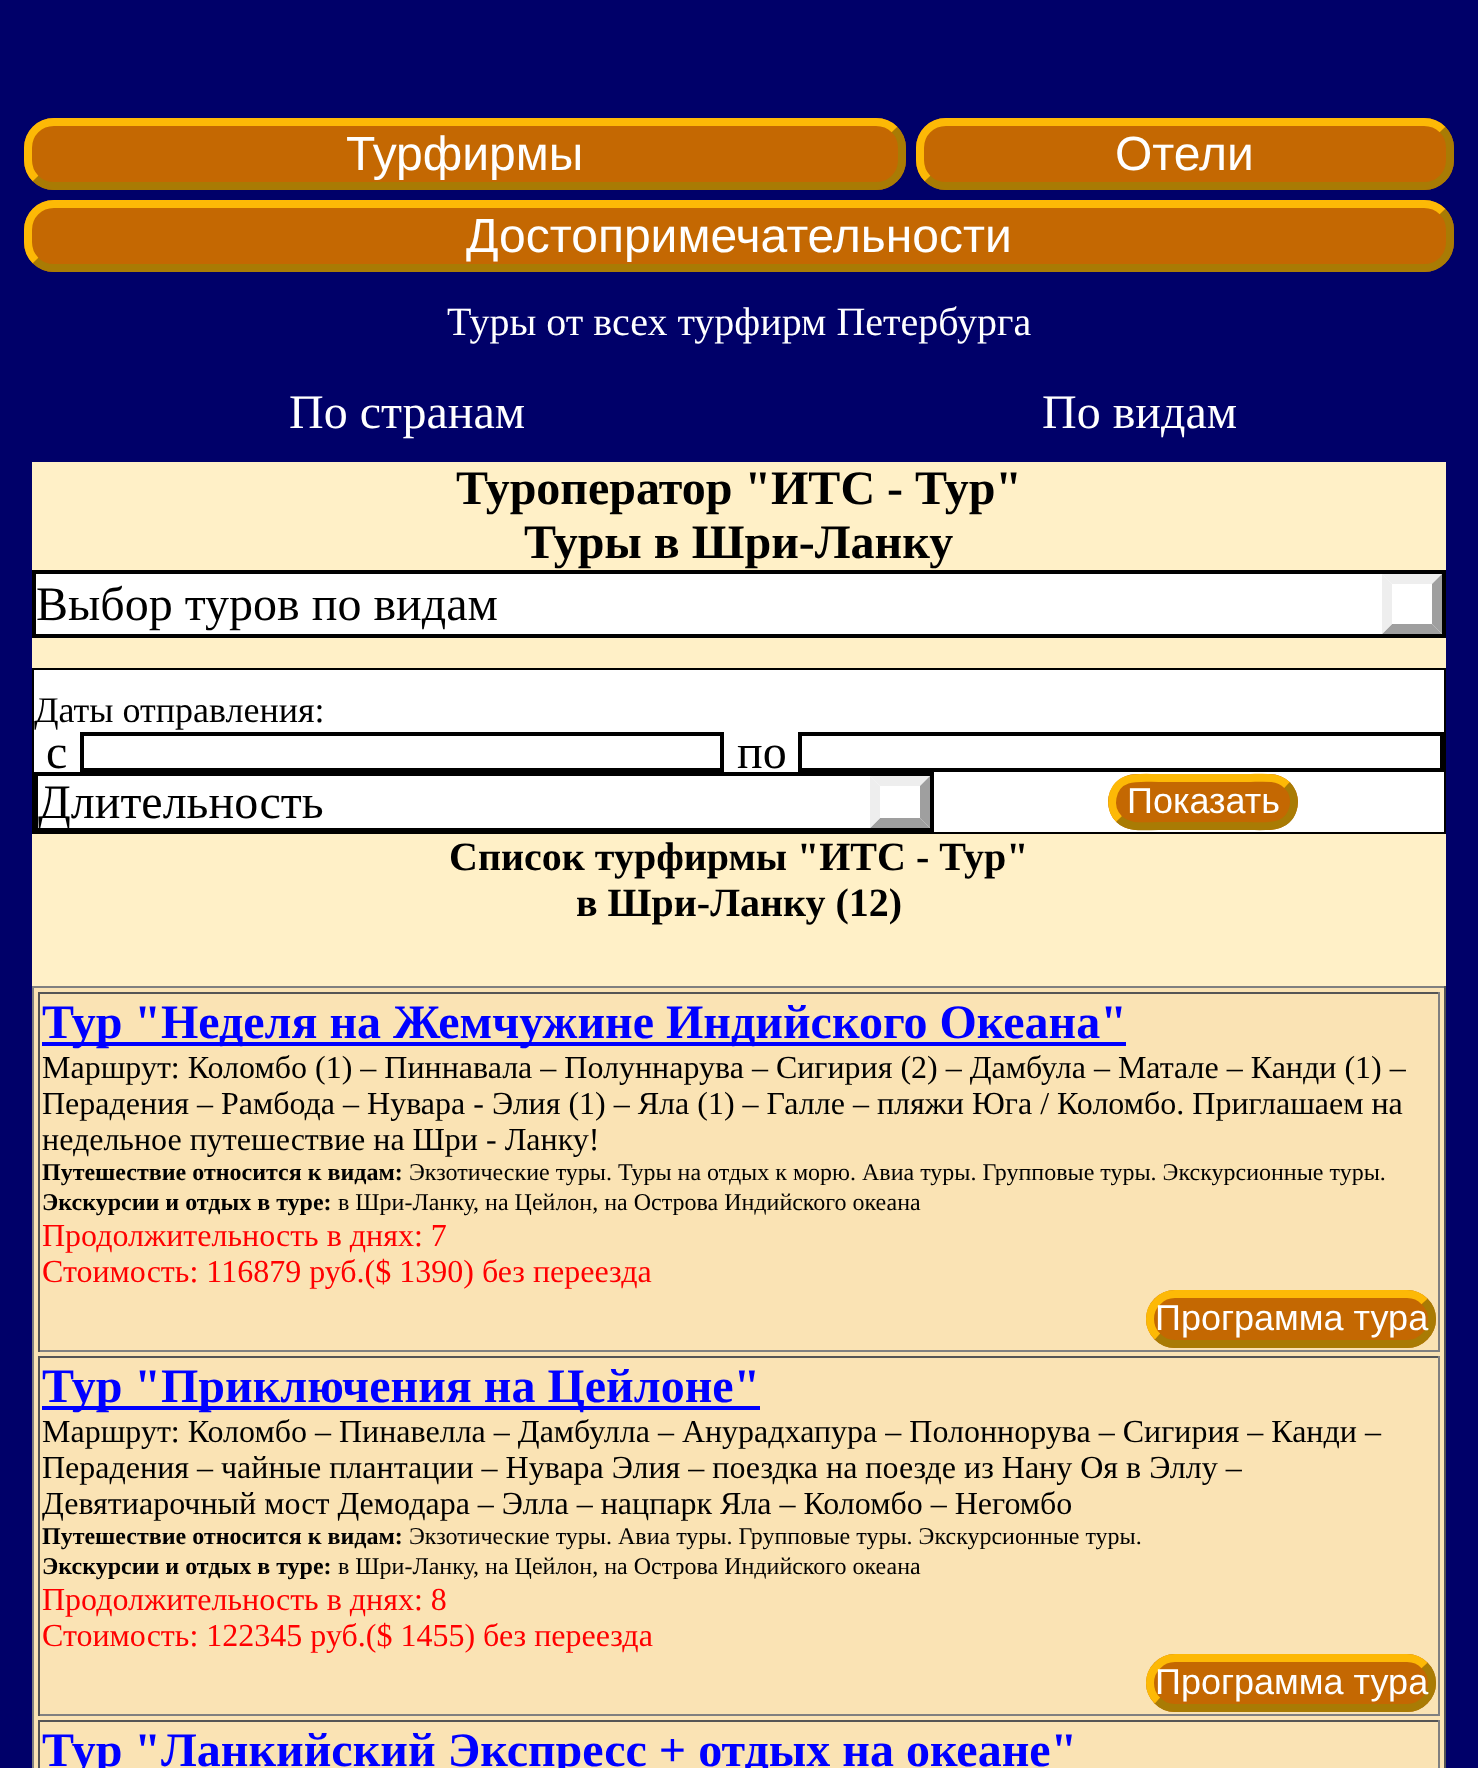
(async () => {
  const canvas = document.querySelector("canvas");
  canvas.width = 1478;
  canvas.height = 1768;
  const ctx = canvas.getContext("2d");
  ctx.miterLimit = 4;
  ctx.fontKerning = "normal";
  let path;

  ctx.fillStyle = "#000069";
  ctx.fillRect(0, 0, 1478, 1768);
  ctx.fillStyle = "#c46802";
  ctx.beginPath();
  ctx.roundRect(24, 118, 882, 72, 30);
  ctx.fill();
  path = new Path2D("M894.5 129.5C899.5 134.5 902 141 902 148V160C902 167 899.5 173.5 894.5 178.5C889.5 183.5 883 186 876 186H54C47 186 40.5 183.5 35.5 178.5");
  ctx.strokeStyle = "#a97b04";
  ctx.lineWidth = 8;
  ctx.stroke(path);
  path = new Path2D("M35.5 178.5C30.5 173.5 28 167 28 160V148C28 141 30.5 134.5 35.5 129.5C40.5 124.5 47 122 54 122H876C883 122 889.5 124.5 894.5 129.5");
  ctx.strokeStyle = "#fdb906";
  ctx.stroke(path);
  ctx.beginPath();
  ctx.roundRect(916, 118, 538, 72, 30);
  ctx.fill();
  path = new Path2D("M1442.5 129.5C1447.5 134.5 1450 141 1450 148V160C1450 167 1447.5 173.5 1442.5 178.5C1437.5 183.5 1431 186 1424 186H946C939 186 932.5 183.5 927.5 178.5");
  ctx.strokeStyle = "#a97b04";
  ctx.stroke(path);
  path = new Path2D("M927.5 178.5C922.5 173.5 920 167 920 160V148C920 141 922.5 134.5 927.5 129.5C932.5 124.5 939 122 946 122H1424C1431 122 1437.5 124.5 1442.5 129.5");
  ctx.strokeStyle = "#fdb906";
  ctx.stroke(path);
  ctx.beginPath();
  ctx.roundRect(24, 200, 1430, 72, 30);
  ctx.fill();
  path = new Path2D("M1442.5 211.5C1447.5 216.5 1450 223 1450 230V242C1450 249 1447.5 255.5 1442.5 260.5C1437.5 265.5 1431 268 1424 268H54C47 268 40.5 265.5 35.5 260.5");
  ctx.strokeStyle = "#a97b04";
  ctx.stroke(path);
  path = new Path2D("M35.5 260.5C30.5 255.5 28 249 28 242V230C28 223 30.5 216.5 35.5 211.5C40.5 206.5 47 204 54 204H1424C1431 204 1437.5 206.5 1442.5 211.5");
  ctx.strokeStyle = "#fdb906";
  ctx.stroke(path);
  ctx.fillStyle = "#fff0c7";
  ctx.fillRect(32, 462, 1414, 524);
  ctx.fillStyle = "#ffffff";
  ctx.beginPath();
  ctx.rect(34, 572, 1410, 64);
  ctx.fill();
  ctx.strokeStyle = "#000000";
  ctx.lineWidth = 4;
  ctx.stroke();
  ctx.fillStyle = "#eeeeee";
  path = new Path2D("M1382 574H1442L1432 584H1392Z");
  ctx.fill(path);
  ctx.fillStyle = "#9f9f9f";
  path = new Path2D("M1442 574V634L1432 624V584Z");
  ctx.fill(path);
  path = new Path2D("M1442 634H1382L1392 624H1432Z");
  ctx.fill(path);
  ctx.fillStyle = "#eeeeee";
  path = new Path2D("M1382 634V574L1392 584V624Z");
  ctx.fill(path);
  ctx.fillStyle = "#ffffff";
  ctx.beginPath();
  ctx.rect(33, 669, 1412, 164);
  ctx.fill();
  ctx.lineWidth = 2;
  ctx.stroke();
  ctx.lineWidth = 4;
  ctx.strokeRect(82, 734, 640, 36);
  ctx.strokeRect(800, 734, 642, 36);
  ctx.strokeRect(36, 774, 896, 56);
  ctx.fillStyle = "#eeeeee";
  path = new Path2D("M870 776H930L920 786H880Z");
  ctx.fill(path);
  ctx.fillStyle = "#9f9f9f";
  path = new Path2D("M930 776V828L920 818V786Z");
  ctx.fill(path);
  path = new Path2D("M930 828H870L880 818H920Z");
  ctx.fill(path);
  ctx.fillStyle = "#eeeeee";
  path = new Path2D("M870 828V776L880 786V818Z");
  ctx.fill(path);
  ctx.fillStyle = "#c46802";
  ctx.beginPath();
  ctx.roundRect(1108, 774, 190, 56, 28);
  ctx.fill();
  path = new Path2D("M1287 785C1292.5 790.5 1295 799 1293.5 806.5C1289 830 1265.5 826 1247.5 826H1158.5C1145.5 826 1129.5 829 1119 819");
  ctx.strokeStyle = "#a97b04";
  ctx.lineWidth = 8;
  ctx.stroke(path);
  path = new Path2D("M1119 819C1113.5 813.5 1111 805 1112.5 797.5C1117 774 1140.5 778 1158.5 778H1247.5C1260.5 778 1276.5 775 1287 785");
  ctx.strokeStyle = "#fdb906";
  ctx.stroke(path);
  for (const [x, y, w, h, color] of [
    [34, 988, 1410, 780, "#fae3b4"],
    [32, 986, 1414, 2, "#808080"],
    [1444, 986, 2, 782, "#555555"],
    [32, 986, 2, 782, "#808080"],
    [38, 992, 1402, 2, "#555555"],
    [1438, 992, 2, 360, "#808080"],
    [38, 1350, 1402, 2, "#808080"],
    [38, 992, 2, 360, "#555555"],
    [42, 1042, 1084, 4, "#0000ff"],
  ]) {
    ctx.fillStyle = color;
    ctx.fillRect(x, y, w, h);
  }
  ctx.fillStyle = "#c46802";
  ctx.beginPath();
  ctx.roundRect(1146, 1290, 290, 58, 29);
  ctx.fill();
  path = new Path2D("M1424.5 1301.5C1429.5 1306 1432 1312.5 1432 1319C1432 1325.5 1429.5 1332 1424.5 1336.5C1420 1341.5 1413.5 1344 1407 1344H1175C1168.5 1344 1162 1341.5 1157.5 1336.5");
  ctx.strokeStyle = "#a97b04";
  ctx.stroke(path);
  path = new Path2D("M1157.5 1336.5C1152.5 1332 1150 1325.5 1150 1319C1150 1312.5 1152.5 1306 1157.5 1301.5C1162 1296.5 1168.5 1294 1175 1294H1407C1413.5 1294 1420 1296.5 1424.5 1301.5");
  ctx.strokeStyle = "#fdb906";
  ctx.stroke(path);
  for (const [x, y, w, h, color] of [
    [38, 1356, 1402, 2, "#555555"],
    [1438, 1356, 2, 360, "#808080"],
    [38, 1714, 1402, 2, "#808080"],
    [38, 1356, 2, 360, "#555555"],
    [42, 1406, 718, 4, "#0000ff"],
  ]) {
    ctx.fillStyle = color;
    ctx.fillRect(x, y, w, h);
  }
  ctx.fillStyle = "#c46802";
  ctx.beginPath();
  ctx.roundRect(1146, 1654, 290, 58, 29);
  ctx.fill();
  path = new Path2D("M1424.5 1665.5C1429.5 1670 1432 1676.5 1432 1683C1432 1689.5 1429.5 1696 1424.5 1700.5C1420 1705.5 1413.5 1708 1407 1708H1175C1168.5 1708 1162 1705.5 1157.5 1700.5");
  ctx.strokeStyle = "#a97b04";
  ctx.stroke(path);
  path = new Path2D("M1157.5 1700.5C1152.5 1696 1150 1689.5 1150 1683C1150 1676.5 1152.5 1670 1157.5 1665.5C1162 1660.5 1168.5 1658 1175 1658H1407C1413.5 1658 1420 1660.5 1424.5 1665.5");
  ctx.strokeStyle = "#fdb906";
  ctx.stroke(path);
  for (const [x, y, w, h, color] of [
    [38, 1720, 1402, 2, "#555555"],
    [1438, 1720, 2, 48, "#808080"],
    [38, 1720, 2, 48, "#555555"],
  ]) {
    ctx.fillStyle = color;
    ctx.fillRect(x, y, w, h);
  }
  ctx.font = "48px Liberation Sans";
  ctx.fillStyle = "#ffffff";
  for (const [text, x, y] of [
    ["Турфирмы", 346, 170],
    ["Отели", 1115, 170],
    ["Достопримечательности", 466, 252],
  ]) {
    ctx.fillText(text, x, y);
  }
  ctx.font = "40px Liberation Serif";
  ctx.fillText("Туры от всех турфирм Петербурга", 447, 335);
  ctx.font = "48px Liberation Serif";
  ctx.fillText("По странам", 289, 428);
  ctx.fillText("По видам", 1042, 428);
  ctx.font = "bold 48px Liberation Serif";
  ctx.fillStyle = "#000000";
  ctx.fillText("Туроператор \"ИТС - Тур\"", 456, 504);
  ctx.fillText("Туры в Шри-Ланку", 524, 558);
  ctx.font = "48px Liberation Serif";
  ctx.fillText("Выбор туров по видам", 36, 620);
  ctx.font = "36px Liberation Serif";
  ctx.fillText("Даты отправления:", 34, 722);
  ctx.font = "48px Liberation Serif";
  for (const [text, x, y] of [
    ["c", 46, 768],
    ["по", 737, 768],
    ["Длительность", 38, 818],
  ]) {
    ctx.fillText(text, x, y);
  }
  ctx.font = "36px Liberation Sans";
  ctx.fillStyle = "#ffffff";
  ctx.fillText("Показать", 1127, 813);
  ctx.font = "bold 40px Liberation Serif";
  ctx.fillStyle = "#000000";
  ctx.fillText("Список турфирмы \"ИТС - Тур\"", 449, 870);
  ctx.fillText("в Шри-Ланку (12)", 576, 916);
  ctx.font = "bold 48px Liberation Serif";
  ctx.fillStyle = "#0000ff";
  ctx.fillText("Тур \"Неделя на Жемчужине Индийского Океана\"", 42, 1038);
  ctx.font = "32px Liberation Serif";
  ctx.fillStyle = "#000000";
  for (const [text, x, y] of [
    ["Маршрут: Коломбо (1) – Пиннавала – Полуннарува – Сигирия (2) – Дамбула – Матале – Канди (1) –", 42, 1078],
    ["Перадения – Рамбода – Нувара - Элия (1) – Яла (1) – Галле – пляжи Юга / Коломбо. Приглашаем на", 42, 1114],
    ["недельное путешествие на Шри - Ланку!", 42, 1150],
  ]) {
    ctx.fillText(text, x, y);
  }
  ctx.font = "bold 24px Liberation Serif";
  ctx.fillText("Путешествие относится к видам:", 42, 1180);
  ctx.font = "24px Liberation Serif";
  ctx.fillText("Экзотические туры. Туры на отдых к морю. Авиа туры. Групповые туры. Экскурсионные туры.", 409, 1180);
  ctx.fillText("в Шри-Ланку, на Цейлон, на Острова Индийского океана", 338, 1210);
  ctx.font = "32px Liberation Serif";
  ctx.fillStyle = "#ff0000";
  ctx.fillText("Продолжительность в днях: 7", 42, 1246);
  ctx.fillText("Стоимость: 116879 руб.($ 1390) без переезда", 42, 1282);
  ctx.font = "36px Liberation Sans";
  ctx.fillStyle = "#ffffff";
  ctx.fillText("Программа тура", 1155, 1330);
  ctx.font = "bold 24px Liberation Serif";
  ctx.fillStyle = "#000000";
  ctx.fillText("Экскурсии и отдых в туре:", 42, 1210);
  ctx.font = "bold 48px Liberation Serif";
  ctx.fillStyle = "#0000ff";
  ctx.fillText("Тур \"Приключения на Цейлоне\"", 42, 1402);
  ctx.font = "32px Liberation Serif";
  ctx.fillStyle = "#000000";
  for (const [text, x, y] of [
    ["Маршрут: Коломбо – Пинавелла – Дамбулла – Анурадхапура – Полоннорува – Сигирия – Канди –", 42, 1442],
    ["Перадения – чайные плантации – Нувара Элия – поездка на поезде из Нану Оя в Эллу –", 42, 1478],
    ["Девятиарочный мост Демодара – Элла – нацпарк Яла – Коломбо – Негомбо", 42, 1514],
  ]) {
    ctx.fillText(text, x, y);
  }
  ctx.font = "bold 24px Liberation Serif";
  ctx.fillText("Путешествие относится к видам:", 42, 1544);
  ctx.font = "24px Liberation Serif";
  ctx.fillText("Экзотические туры. Авиа туры. Групповые туры. Экскурсионные туры.", 409, 1544);
  ctx.fillText("в Шри-Ланку, на Цейлон, на Острова Индийского океана", 338, 1574);
  ctx.font = "32px Liberation Serif";
  ctx.fillStyle = "#ff0000";
  ctx.fillText("Продолжительность в днях: 8", 42, 1610);
  ctx.fillText("Стоимость: 122345 руб.($ 1455) без переезда", 42, 1646);
  ctx.font = "36px Liberation Sans";
  ctx.fillStyle = "#ffffff";
  ctx.fillText("Программа тура", 1155, 1694);
  ctx.font = "bold 24px Liberation Serif";
  ctx.fillStyle = "#000000";
  ctx.fillText("Экскурсии и отдых в туре:", 42, 1574);
  ctx.font = "bold 48px Liberation Serif";
  ctx.fillStyle = "#0000ff";
  ctx.fillText("Тур \"Ланкийский Экспресс + отдых на океане\"", 42, 1766);
})();
